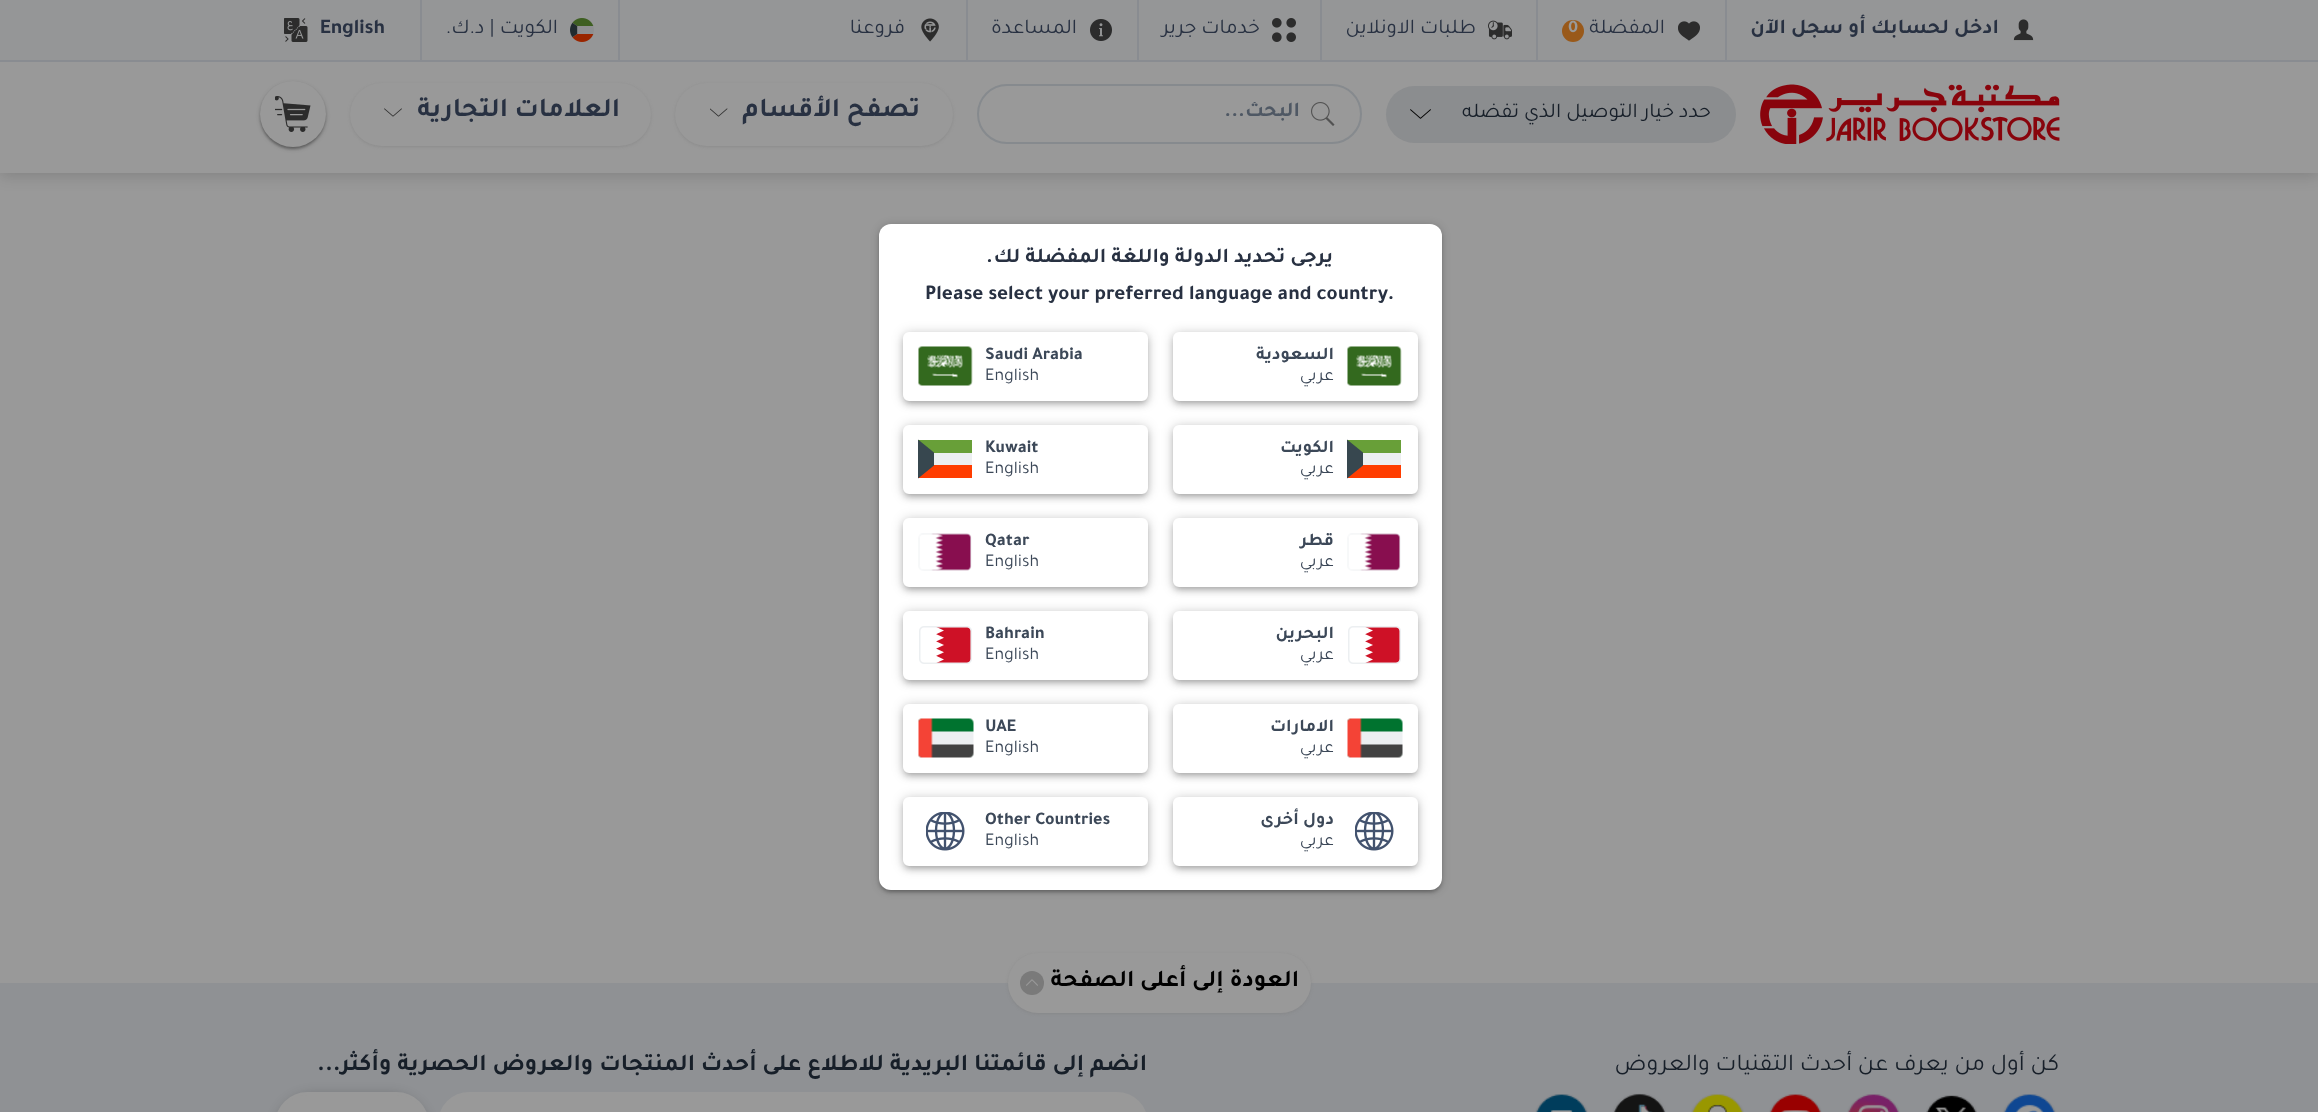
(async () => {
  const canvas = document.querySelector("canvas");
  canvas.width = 2318;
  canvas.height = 1112;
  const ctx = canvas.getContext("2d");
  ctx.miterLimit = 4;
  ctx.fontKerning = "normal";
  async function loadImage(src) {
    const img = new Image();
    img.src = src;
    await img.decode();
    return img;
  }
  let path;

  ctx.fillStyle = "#999999";
  ctx.fillRect(0, 0, 2318, 1112);
  ctx.fillStyle = "rgba(0, 0, 0, 0.15)";
  ctx.filter = "blur(7.5px)";
  ctx.beginPath();
  ctx.rect(0, 3, 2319, 173);
  ctx.fill();
  ctx.filter = "none";
  for (const [x, y, w, h, color] of [
    [0, 62, 2318, 111, "#999999"],
    [0, 0, 2318, 60, "#959697"],
    [0, 60, 2318, 2, "#898c91"],
  ]) {
    ctx.fillStyle = color;
    ctx.fillRect(x, y, w, h);
  }
  ctx.drawImage(await loadImage("img/1.png"), 2013, 19, 21, 22);
  ctx.fillRect(1725, 0, 2, 60);
  ctx.drawImage(await loadImage("img/2.png"), 1678, 21, 22, 20);
  ctx.fillStyle = "#99591a";
  ctx.beginPath();
  ctx.arc(1573, 31, 11, 0, Math.PI * 2);
  ctx.fill();
  ctx.fillStyle = "#898c91";
  ctx.fillRect(1536, 0, 2, 60);
  ctx.drawImage(await loadImage("img/3.png"), 1488, 20, 24, 20);
  ctx.fillRect(1320, 0, 2, 60);
  ctx.drawImage(await loadImage("img/4.png"), 1272, 18, 24, 24);
  ctx.fillRect(1137, 0, 2, 60);
  ctx.drawImage(await loadImage("img/5.png"), 1090, 19, 22, 22);
  ctx.fillRect(966, 0, 2, 60);
  ctx.drawImage(await loadImage("img/6.png"), 921, 18, 18, 24);
  ctx.fillRect(618, 0, 2, 60);
  ctx.drawImage(await loadImage("img/7.png"), 570, 18, 24, 24);
  ctx.fillRect(420, 0, 2, 60);
  ctx.drawImage(await loadImage("img/8.png"), 284, 18, 24, 24);
  ctx.drawImage(await loadImage("img/9.png"), 1760, 84, 300, 60);
  ctx.fillStyle = "#8b8d8f";
  ctx.beginPath();
  ctx.roundRect(1386, 86, 350, 57, 28.5);
  ctx.fill();
  ctx.drawImage(await loadImage("img/10.png"), 1410, 109, 21, 10);
  ctx.beginPath();
  ctx.roundRect(978, 85, 383, 58, 29);
  ctx.strokeStyle = "#868a8e";
  ctx.lineWidth = 2;
  ctx.stroke();
  ctx.drawImage(await loadImage("img/11.png"), 1311, 102, 24, 24);
  ctx.fillStyle = "rgba(128, 128, 128, 0.5)";
  ctx.filter = "blur(1.5px)";
  ctx.beginPath();
  ctx.roundRect(675, 84, 278, 63, 31.5);
  ctx.fill();
  ctx.filter = "none";
  ctx.fillStyle = "#999999";
  ctx.beginPath();
  ctx.roundRect(675, 83, 278, 63, 31.5);
  ctx.fill();
  ctx.drawImage(await loadImage("img/12.png"), 710, 108, 18, 9);
  ctx.fillStyle = "rgba(128, 128, 128, 0.5)";
  ctx.filter = "blur(1.5px)";
  ctx.beginPath();
  ctx.roundRect(350, 84, 301, 63, 31.5);
  ctx.fill();
  ctx.filter = "none";
  ctx.fillStyle = "#999999";
  ctx.beginPath();
  ctx.roundRect(350, 83, 301, 63, 31.5);
  ctx.fill();
  ctx.drawImage(await loadImage("img/13.png"), 384, 108, 18, 9);
  ctx.fillStyle = "rgba(0, 0, 0, 0.14)";
  ctx.filter = "blur(1px)";
  ctx.beginPath();
  ctx.roundRect(260, 83, 66, 66, 33);
  ctx.fill();
  ctx.filter = "none";
  ctx.fillStyle = "rgba(0, 0, 0, 0.12)";
  ctx.filter = "blur(1px)";
  ctx.beginPath();
  ctx.roundRect(261, 86, 63, 63, 31.5);
  ctx.fill();
  ctx.filter = "none";
  ctx.fillStyle = "rgba(0, 0, 0, 0.2)";
  ctx.filter = "blur(2px)";
  ctx.beginPath();
  ctx.roundRect(260, 83, 66, 66, 33);
  ctx.fill();
  ctx.filter = "none";
  ctx.fillStyle = "#999999";
  ctx.beginPath();
  ctx.arc(293, 114, 33, 0, Math.PI * 2);
  ctx.fill();
  ctx.drawImage(await loadImage("img/14.png"), 275, 96, 36, 36);
  ctx.fillStyle = "rgba(0, 0, 0, 0.14)";
  ctx.filter = "blur(1.5px)";
  ctx.beginPath();
  ctx.roundRect(879, 227, 563, 666, 12);
  ctx.fill();
  ctx.filter = "none";
  ctx.fillStyle = "rgba(0, 0, 0, 0.12)";
  ctx.filter = "blur(1px)";
  ctx.beginPath();
  ctx.roundRect(882, 231, 557, 660, 9);
  ctx.fill();
  ctx.filter = "none";
  ctx.fillStyle = "rgba(0, 0, 0, 0.2)";
  ctx.filter = "blur(4px)";
  ctx.beginPath();
  ctx.roundRect(879, 225, 563, 666, 12);
  ctx.fill();
  ctx.filter = "none";
  ctx.fillStyle = "#ffffff";
  ctx.beginPath();
  ctx.roundRect(879, 224, 563, 666, 12);
  ctx.fill();
  ctx.fillStyle = "rgba(0, 0, 0, 0.14)";
  ctx.filter = "blur(3px)";
  ctx.beginPath();
  ctx.roundRect(1173, 336, 245, 69, 6);
  ctx.fill();
  ctx.filter = "none";
  ctx.fillStyle = "rgba(0, 0, 0, 0.12)";
  ctx.filter = "blur(2px)";
  ctx.beginPath();
  ctx.roundRect(1176, 339, 239, 63, 3);
  ctx.fill();
  ctx.filter = "none";
  ctx.fillStyle = "rgba(0, 0, 0, 0.2)";
  ctx.filter = "blur(6px)";
  ctx.beginPath();
  ctx.roundRect(1173, 333, 245, 69, 6);
  ctx.fill();
  ctx.filter = "none";
  ctx.fillStyle = "#ffffff";
  ctx.beginPath();
  ctx.roundRect(1174.5, 333.5, 242, 66, 4.5);
  ctx.fill();
  ctx.strokeStyle = "#ffffff";
  ctx.lineWidth = 3;
  ctx.stroke();
  ctx.drawImage(await loadImage("img/15.png"), 1347, 346, 55, 40);
  ctx.fillStyle = "rgba(0, 0, 0, 0.14)";
  ctx.filter = "blur(3px)";
  ctx.beginPath();
  ctx.roundRect(903, 336, 245, 69, 6);
  ctx.fill();
  ctx.filter = "none";
  ctx.fillStyle = "rgba(0, 0, 0, 0.12)";
  ctx.filter = "blur(2px)";
  ctx.beginPath();
  ctx.roundRect(906, 339, 239, 63, 3);
  ctx.fill();
  ctx.filter = "none";
  ctx.fillStyle = "rgba(0, 0, 0, 0.2)";
  ctx.filter = "blur(6px)";
  ctx.beginPath();
  ctx.roundRect(903, 333, 245, 69, 6);
  ctx.fill();
  ctx.filter = "none";
  ctx.fillStyle = "#ffffff";
  ctx.beginPath();
  ctx.roundRect(904.5, 333.5, 242, 66, 4.5);
  ctx.fill();
  ctx.stroke();
  ctx.drawImage(await loadImage("img/16.png"), 918, 346, 55, 40);
  ctx.fillStyle = "rgba(0, 0, 0, 0.14)";
  ctx.filter = "blur(3px)";
  ctx.beginPath();
  ctx.roundRect(1173, 429, 245, 69, 6);
  ctx.fill();
  ctx.filter = "none";
  ctx.fillStyle = "rgba(0, 0, 0, 0.12)";
  ctx.filter = "blur(2px)";
  ctx.beginPath();
  ctx.roundRect(1176, 432, 239, 63, 3);
  ctx.fill();
  ctx.filter = "none";
  ctx.fillStyle = "rgba(0, 0, 0, 0.2)";
  ctx.filter = "blur(6px)";
  ctx.beginPath();
  ctx.roundRect(1173, 426, 245, 69, 6);
  ctx.fill();
  ctx.filter = "none";
  ctx.fillStyle = "#ffffff";
  ctx.beginPath();
  ctx.roundRect(1174.5, 426.5, 242, 66, 4.5);
  ctx.fill();
  ctx.stroke();
  for (const [x, y, w, h, color] of [
    [1363, 453, 38, 12, "#eceff1"],
    [1347, 465, 54, 13, "#ff3d00"],
    [1347, 440, 54, 13, "#689f38"],
  ]) {
    ctx.fillStyle = color;
    ctx.fillRect(x, y, w, h);
  }
  ctx.fillStyle = "#37474f";
  path = new Path2D("M1347 439.5L1363 452.5V465.5L1347 478.5Z");
  ctx.fill(path);
  ctx.fillStyle = "rgba(0, 0, 0, 0.14)";
  ctx.filter = "blur(3px)";
  ctx.beginPath();
  ctx.roundRect(903, 429, 245, 69, 6);
  ctx.fill();
  ctx.filter = "none";
  ctx.fillStyle = "rgba(0, 0, 0, 0.12)";
  ctx.filter = "blur(2px)";
  ctx.beginPath();
  ctx.roundRect(906, 432, 239, 63, 3);
  ctx.fill();
  ctx.filter = "none";
  ctx.fillStyle = "rgba(0, 0, 0, 0.2)";
  ctx.filter = "blur(6px)";
  ctx.beginPath();
  ctx.roundRect(903, 426, 245, 69, 6);
  ctx.fill();
  ctx.filter = "none";
  ctx.fillStyle = "#ffffff";
  ctx.beginPath();
  ctx.roundRect(904.5, 426.5, 242, 66, 4.5);
  ctx.fill();
  ctx.stroke();
  for (const [x, y, w, h, color] of [
    [934, 453, 38, 12, "#eceff1"],
    [918, 465, 54, 13, "#ff3d00"],
    [918, 440, 54, 13, "#689f38"],
  ]) {
    ctx.fillStyle = color;
    ctx.fillRect(x, y, w, h);
  }
  ctx.fillStyle = "#37474f";
  path = new Path2D("M918 439.5L934 452.5V465.5L918 478.5Z");
  ctx.fill(path);
  ctx.fillStyle = "rgba(0, 0, 0, 0.14)";
  ctx.filter = "blur(3px)";
  ctx.beginPath();
  ctx.roundRect(1173, 522, 245, 69, 6);
  ctx.fill();
  ctx.filter = "none";
  ctx.fillStyle = "rgba(0, 0, 0, 0.12)";
  ctx.filter = "blur(2px)";
  ctx.beginPath();
  ctx.roundRect(1176, 525, 239, 63, 3);
  ctx.fill();
  ctx.filter = "none";
  ctx.fillStyle = "rgba(0, 0, 0, 0.2)";
  ctx.filter = "blur(6px)";
  ctx.beginPath();
  ctx.roundRect(1173, 519, 245, 69, 6);
  ctx.fill();
  ctx.filter = "none";
  ctx.fillStyle = "#ffffff";
  ctx.beginPath();
  ctx.roundRect(1174.5, 519.5, 242, 66, 4.5);
  ctx.fill();
  ctx.stroke();
  ctx.drawImage(await loadImage("img/17.png"), 1347, 533, 54, 38);
  ctx.fillStyle = "rgba(0, 0, 0, 0.14)";
  ctx.filter = "blur(3px)";
  ctx.beginPath();
  ctx.roundRect(903, 522, 245, 69, 6);
  ctx.fill();
  ctx.filter = "none";
  ctx.fillStyle = "rgba(0, 0, 0, 0.12)";
  ctx.filter = "blur(2px)";
  ctx.beginPath();
  ctx.roundRect(906, 525, 239, 63, 3);
  ctx.fill();
  ctx.filter = "none";
  ctx.fillStyle = "rgba(0, 0, 0, 0.2)";
  ctx.filter = "blur(6px)";
  ctx.beginPath();
  ctx.roundRect(903, 519, 245, 69, 6);
  ctx.fill();
  ctx.filter = "none";
  ctx.fillStyle = "#ffffff";
  ctx.beginPath();
  ctx.roundRect(904.5, 519.5, 242, 66, 4.5);
  ctx.fill();
  ctx.stroke();
  ctx.drawImage(await loadImage("img/17.png"), 918, 533, 54, 38);
  ctx.fillStyle = "rgba(0, 0, 0, 0.14)";
  ctx.filter = "blur(3px)";
  ctx.beginPath();
  ctx.roundRect(1173, 615, 245, 69, 6);
  ctx.fill();
  ctx.filter = "none";
  ctx.fillStyle = "rgba(0, 0, 0, 0.12)";
  ctx.filter = "blur(2px)";
  ctx.beginPath();
  ctx.roundRect(1176, 618, 239, 63, 3);
  ctx.fill();
  ctx.filter = "none";
  ctx.fillStyle = "rgba(0, 0, 0, 0.2)";
  ctx.filter = "blur(6px)";
  ctx.beginPath();
  ctx.roundRect(1173, 612, 245, 69, 6);
  ctx.fill();
  ctx.filter = "none";
  ctx.fillStyle = "#ffffff";
  ctx.beginPath();
  ctx.roundRect(1174.5, 612.5, 242, 66, 4.5);
  ctx.fill();
  ctx.stroke();
  ctx.drawImage(await loadImage("img/18.png"), 1348, 626, 53, 38);
  ctx.fillStyle = "rgba(0, 0, 0, 0.14)";
  ctx.filter = "blur(3px)";
  ctx.beginPath();
  ctx.roundRect(903, 615, 245, 69, 6);
  ctx.fill();
  ctx.filter = "none";
  ctx.fillStyle = "rgba(0, 0, 0, 0.12)";
  ctx.filter = "blur(2px)";
  ctx.beginPath();
  ctx.roundRect(906, 618, 239, 63, 3);
  ctx.fill();
  ctx.filter = "none";
  ctx.fillStyle = "rgba(0, 0, 0, 0.2)";
  ctx.filter = "blur(6px)";
  ctx.beginPath();
  ctx.roundRect(903, 612, 245, 69, 6);
  ctx.fill();
  ctx.filter = "none";
  ctx.fillStyle = "#ffffff";
  ctx.beginPath();
  ctx.roundRect(904.5, 612.5, 242, 66, 4.5);
  ctx.fill();
  ctx.stroke();
  ctx.drawImage(await loadImage("img/18.png"), 919, 626, 53, 38);
  ctx.fillStyle = "rgba(0, 0, 0, 0.14)";
  ctx.filter = "blur(3px)";
  ctx.beginPath();
  ctx.roundRect(1173, 708, 245, 69, 6);
  ctx.fill();
  ctx.filter = "none";
  ctx.fillStyle = "rgba(0, 0, 0, 0.12)";
  ctx.filter = "blur(2px)";
  ctx.beginPath();
  ctx.roundRect(1176, 711, 239, 63, 3);
  ctx.fill();
  ctx.filter = "none";
  ctx.fillStyle = "rgba(0, 0, 0, 0.2)";
  ctx.filter = "blur(6px)";
  ctx.beginPath();
  ctx.roundRect(1173, 705, 245, 69, 6);
  ctx.fill();
  ctx.filter = "none";
  ctx.fillStyle = "#ffffff";
  ctx.beginPath();
  ctx.roundRect(1174.5, 705.5, 242, 66, 4.5);
  ctx.fill();
  ctx.stroke();
  ctx.drawImage(await loadImage("img/19.png"), 1347, 718, 56, 40);
  ctx.fillStyle = "rgba(0, 0, 0, 0.14)";
  ctx.filter = "blur(3px)";
  ctx.beginPath();
  ctx.roundRect(903, 708, 245, 69, 6);
  ctx.fill();
  ctx.filter = "none";
  ctx.fillStyle = "rgba(0, 0, 0, 0.12)";
  ctx.filter = "blur(2px)";
  ctx.beginPath();
  ctx.roundRect(906, 711, 239, 63, 3);
  ctx.fill();
  ctx.filter = "none";
  ctx.fillStyle = "rgba(0, 0, 0, 0.2)";
  ctx.filter = "blur(6px)";
  ctx.beginPath();
  ctx.roundRect(903, 705, 245, 69, 6);
  ctx.fill();
  ctx.filter = "none";
  ctx.fillStyle = "#ffffff";
  ctx.beginPath();
  ctx.roundRect(904.5, 705.5, 242, 66, 4.5);
  ctx.fill();
  ctx.stroke();
  ctx.drawImage(await loadImage("img/20.png"), 918, 718, 56, 40);
  ctx.fillStyle = "rgba(0, 0, 0, 0.14)";
  ctx.filter = "blur(3px)";
  ctx.beginPath();
  ctx.roundRect(1173, 801, 245, 69, 6);
  ctx.fill();
  ctx.filter = "none";
  ctx.fillStyle = "rgba(0, 0, 0, 0.12)";
  ctx.filter = "blur(2px)";
  ctx.beginPath();
  ctx.roundRect(1176, 804, 239, 63, 3);
  ctx.fill();
  ctx.filter = "none";
  ctx.fillStyle = "rgba(0, 0, 0, 0.2)";
  ctx.filter = "blur(6px)";
  ctx.beginPath();
  ctx.roundRect(1173, 798, 245, 69, 6);
  ctx.fill();
  ctx.filter = "none";
  ctx.fillStyle = "#ffffff";
  ctx.beginPath();
  ctx.roundRect(1174.5, 798.5, 242, 66, 4.5);
  ctx.fill();
  ctx.stroke();
  ctx.drawImage(await loadImage("img/21.png"), 1355, 812, 39, 39);
  ctx.fillStyle = "rgba(0, 0, 0, 0.14)";
  ctx.filter = "blur(3px)";
  ctx.beginPath();
  ctx.roundRect(903, 801, 245, 69, 6);
  ctx.fill();
  ctx.filter = "none";
  ctx.fillStyle = "rgba(0, 0, 0, 0.12)";
  ctx.filter = "blur(2px)";
  ctx.beginPath();
  ctx.roundRect(906, 804, 239, 63, 3);
  ctx.fill();
  ctx.filter = "none";
  ctx.fillStyle = "rgba(0, 0, 0, 0.2)";
  ctx.filter = "blur(6px)";
  ctx.beginPath();
  ctx.roundRect(903, 798, 245, 69, 6);
  ctx.fill();
  ctx.filter = "none";
  ctx.fillStyle = "#ffffff";
  ctx.beginPath();
  ctx.roundRect(904.5, 798.5, 242, 66, 4.5);
  ctx.fill();
  ctx.stroke();
  ctx.drawImage(await loadImage("img/21.png"), 926, 812, 39, 39);
  ctx.fillStyle = "#8f9194";
  ctx.fillRect(0, 983, 2318, 129);
  ctx.fillStyle = "rgba(128, 128, 128, 0.5)";
  ctx.filter = "blur(1.5px)";
  ctx.beginPath();
  ctx.roundRect(1008, 954, 303, 60, 30);
  ctx.fill();
  ctx.filter = "none";
  ctx.fillStyle = "#999999";
  ctx.beginPath();
  ctx.roundRect(1008, 953, 303, 60, 30);
  ctx.fill();
  ctx.fillStyle = "#7a7a7a";
  ctx.beginPath();
  ctx.arc(1032, 983, 12, 0, Math.PI * 2);
  ctx.fill();
  ctx.drawImage(await loadImage("img/22.png"), 1026, 979, 12, 7);
  ctx.drawImage(await loadImage("img/23.png"), 2003, 1094, 53, 18);
  ctx.drawImage(await loadImage("img/24.png"), 1926, 1095, 51, 17);
  ctx.drawImage(await loadImage("img/25.png"), 1847, 1094, 53, 18);
  ctx.drawImage(await loadImage("img/26.png"), 1769, 1094, 53, 18);
  ctx.drawImage(await loadImage("img/27.png"), 1691, 1094, 53, 18);
  ctx.drawImage(await loadImage("img/28.png"), 1613, 1093, 53, 19);
  ctx.drawImage(await loadImage("img/29.png"), 1535, 1094, 53, 18);
  ctx.fillStyle = "#999999";
  ctx.beginPath();
  ctx.roundRect(438, 1092, 710, 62, 42);
  ctx.fill();
  ctx.fillStyle = "rgba(0, 0, 0, 0.2)";
  ctx.filter = "blur(6px)";
  ctx.beginPath();
  ctx.roundRect(275, 1094, 154, 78, 42);
  ctx.fill();
  ctx.filter = "none";
  ctx.fillStyle = "#999999";
  ctx.beginPath();
  ctx.roundRect(276.5, 1093.5, 151, 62, 40.5);
  ctx.fill();
  ctx.strokeStyle = "#999999";
  ctx.stroke();
  ctx.direction = "rtl";
  ctx.font = "bold 21px Tajawal";
  ctx.fillStyle = "#283142";
  ctx.fillText("ادخل لحسابك أو سجل الآن", 1999, 33);
  ctx.font = "21px Tajawal";
  ctx.fillText("المفضلة", 1665, 33);
  ctx.direction = "ltr";
  ctx.font = "bold 18px Tajawal";
  ctx.fillStyle = "#999999";
  ctx.fillText("0", 1568, 32);
  ctx.direction = "rtl";
  ctx.font = "21px Tajawal";
  ctx.fillStyle = "#283142";
  for (const [text, x, y] of [
    ["طلبات الاونلاين", 1476, 33],
    ["خدمات جرير", 1260, 33],
    ["المساعدة", 1077, 33],
    ["فروعنا", 905, 33],
    ["الكويت | د.ك.", 558, 33],
  ]) {
    ctx.fillText(text, x, y);
  }
  ctx.direction = "ltr";
  ctx.font = "bold 21px Tajawal";
  ctx.fillText("English", 320, 33);
  ctx.direction = "rtl";
  ctx.font = "21px Tajawal";
  ctx.fillStyle = "#171f29";
  ctx.fillText("حدد خيار التوصيل الذي تفضله", 1711, 117);
  ctx.save();
  ctx.beginPath();
  ctx.rect(1026, 102, 275, 26);
  ctx.clip();
  ctx.font = "bold 21px Tajawal";
  ctx.fillStyle = "#4f5864";
  ctx.fillText("البحث...", 1300, 116);
  ctx.restore();
  ctx.font = "bold 27px Tajawal";
  ctx.fillStyle = "#283142";
  ctx.fillText("تصفح الأقسام", 920, 116);
  ctx.fillText("العلامات التجارية", 620, 116);
  ctx.font = "bold 21px Tajawal";
  ctx.fillText("يرجى تحديد الدولة واللغة المفضلة لك", 1333, 262);
  ctx.direction = "ltr";
  ctx.fillText(".", 986, 262);
  ctx.fillText("Please select your preferred language and country.", 925, 299);
  ctx.direction = "rtl";
  ctx.font = "bold 18px Tajawal";
  ctx.fillStyle = "#3c4858";
  ctx.fillText("السعودية", 1334, 359);
  ctx.font = "18px Tajawal";
  ctx.fillText("عربي", 1334, 380);
  ctx.direction = "ltr";
  ctx.font = "bold 18px Tajawal";
  ctx.fillText("Saudi Arabia", 985, 359);
  ctx.font = "18px Tajawal";
  ctx.fillText("English", 985, 380);
  ctx.direction = "rtl";
  ctx.font = "bold 18px Tajawal";
  ctx.fillText("الكويت", 1334, 452);
  ctx.font = "18px Tajawal";
  ctx.fillText("عربي", 1334, 473);
  ctx.direction = "ltr";
  ctx.font = "bold 18px Tajawal";
  ctx.fillText("Kuwait", 985, 452);
  ctx.font = "18px Tajawal";
  ctx.fillText("English", 985, 473);
  ctx.direction = "rtl";
  ctx.font = "bold 18px Tajawal";
  ctx.fillText("قطر", 1334, 545);
  ctx.font = "18px Tajawal";
  ctx.fillText("عربي", 1334, 566);
  ctx.direction = "ltr";
  ctx.font = "bold 18px Tajawal";
  ctx.fillText("Qatar", 985, 545);
  ctx.font = "18px Tajawal";
  ctx.fillText("English", 985, 566);
  ctx.direction = "rtl";
  ctx.font = "bold 18px Tajawal";
  ctx.fillText("البحرين", 1334, 638);
  ctx.font = "18px Tajawal";
  ctx.fillText("عربي", 1334, 659);
  ctx.direction = "ltr";
  ctx.font = "bold 18px Tajawal";
  ctx.fillText("Bahrain", 985, 638);
  ctx.font = "18px Tajawal";
  ctx.fillText("English", 985, 659);
  ctx.direction = "rtl";
  ctx.font = "bold 18px Tajawal";
  ctx.fillText("الامارات", 1334, 731);
  ctx.font = "18px Tajawal";
  ctx.fillText("عربي", 1334, 752);
  ctx.direction = "ltr";
  ctx.font = "bold 18px Tajawal";
  ctx.fillText("UAE", 985, 731);
  ctx.font = "18px Tajawal";
  ctx.fillText("English", 985, 752);
  ctx.direction = "rtl";
  ctx.font = "bold 18px Tajawal";
  ctx.fillText("دول أخرى", 1334, 824);
  ctx.font = "18px Tajawal";
  ctx.fillText("عربي", 1334, 845);
  ctx.direction = "ltr";
  ctx.font = "bold 18px Tajawal";
  ctx.fillText("Other Countries", 985, 824);
  ctx.font = "18px Tajawal";
  ctx.fillText("English", 985, 845);
  ctx.direction = "rtl";
  ctx.font = "bold 24px Tajawal";
  ctx.fillStyle = "#000000";
  ctx.fillText("العودة إلى أعلى الصفحة", 1299, 986);
  ctx.font = "24px Tajawal";
  ctx.fillStyle = "#171f29";
  ctx.fillText("كن أول من يعرف عن أحدث التقنيات والعروض", 2059, 1070);
  ctx.font = "bold 24px Tajawal";
  ctx.fillText("انضم إلى قائمتنا البريدية للاطلاع على أحدث المنتجات والعروض الحصرية وأكثر...", 1147, 1070);
})();
